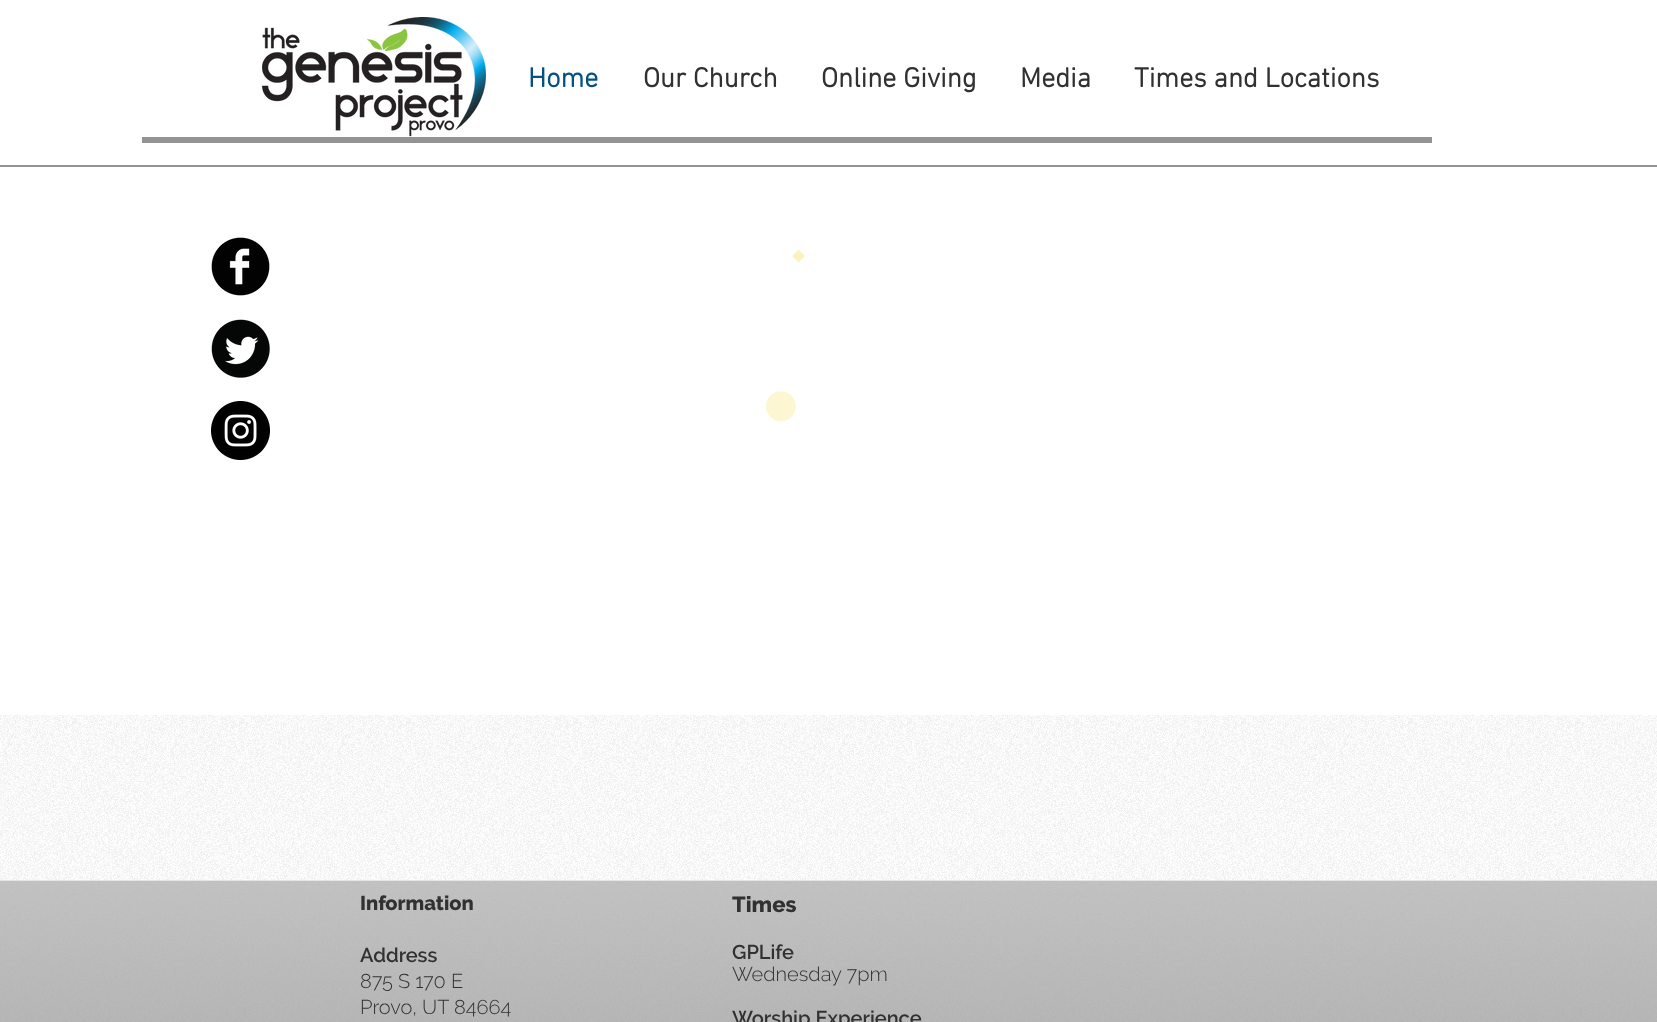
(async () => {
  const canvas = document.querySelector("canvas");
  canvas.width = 1657;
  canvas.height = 1022;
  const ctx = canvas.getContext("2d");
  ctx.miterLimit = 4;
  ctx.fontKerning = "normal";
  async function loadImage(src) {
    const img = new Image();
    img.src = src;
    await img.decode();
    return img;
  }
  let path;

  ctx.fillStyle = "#ffffff";
  ctx.fillRect(0, 0, 1657, 1022);
  ctx.drawImage(await loadImage("img/1.png"), 261, 17, 225, 120);
  ctx.fillStyle = "#939393";
  ctx.fillRect(142, 137, 1290, 6);
  ctx.fillRect(0, 165, 1657, 2);
  ctx.drawImage(await loadImage("img/2.png"), 211, 237, 59, 59);
  ctx.drawImage(await loadImage("img/3.png"), 211, 319, 59, 59);
  ctx.drawImage(await loadImage("img/4.png"), 211, 401, 59, 59);
  ctx.fillStyle = "#fbf3bf";
  path = new Path2D("M805 256L798.5 262.5L792 256L798.5 249.5Z");
  ctx.fill(path);
  ctx.drawImage(await loadImage("img/5.png"), 766, 391, 30, 31);
  ctx.drawImage(await loadImage("img/6.png"), 0, 715, 1657, 307);
  ctx.fillStyle = "rgba(147, 147, 147, 0.75)";
  ctx.fillRect(0, 880, 1657, 142);
  ctx.drawImage(await loadImage("img/7.png"), 0, 880, 1657, 142);
  ctx.fillStyle = "rgba(255, 255, 255, 0.59)";
  ctx.fillRect(0, 880, 1657, 1);
  ctx.font = "bold 28px 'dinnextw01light'";
  ctx.fillStyle = "#045184";
  ctx.fillText("Home", 528, 87);
  ctx.fillStyle = "#313131";
  for (const [text, x, y] of [
    ["Our Church", 643, 87],
    ["Online Giving", 821, 87],
    ["Media", 1020, 87],
    ["Times and Locations", 1134, 87],
  ]) {
    ctx.fillText(text, x, y);
  }
  ctx.font = "800 20px Raleway";
  ctx.fillText("Information", 360, 910);
  ctx.font = "600 20px Raleway";
  ctx.fillText("Address", 360, 962);
  ctx.font = "300 20px Raleway";
  ctx.fillText("875 S 170 E", 360, 988);
  ctx.fillText("Provo, UT 84664", 360, 1014);
  ctx.font = "800 22px Raleway";
  ctx.fillText("Times", 732, 912);
  ctx.font = "600 20px Raleway";
  ctx.fillText("GPLife", 732, 959);
  ctx.font = "300 20px Raleway";
  ctx.fillText("Wednesday 7pm", 732, 981);
  ctx.font = "600 20px Raleway";
  ctx.fillText("Worship Experience", 732, 1025);
})();
